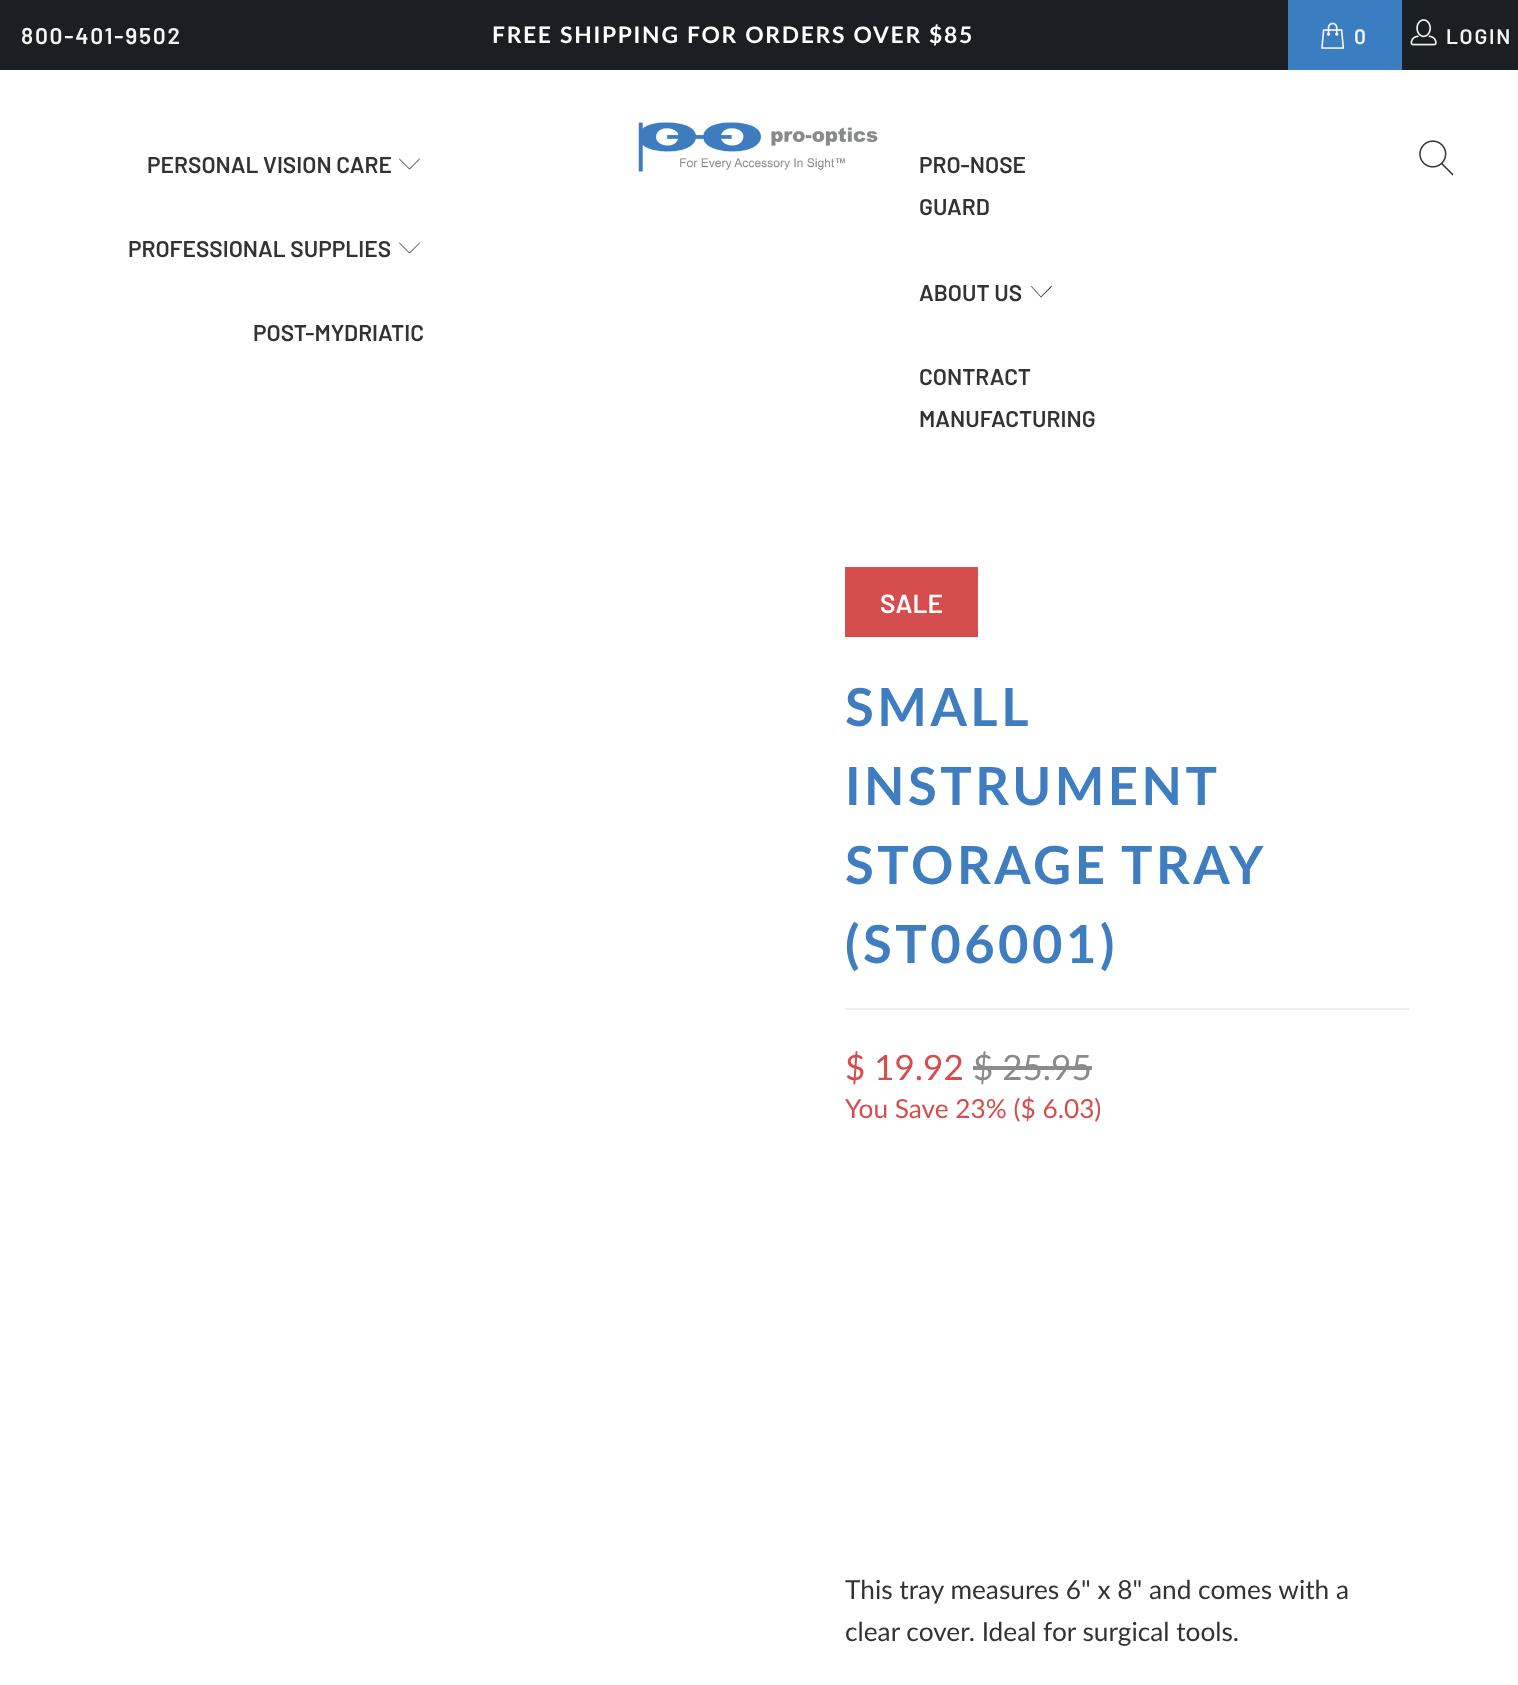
(async () => {
  const canvas = document.querySelector("canvas");
  canvas.width = 1518;
  canvas.height = 1685;
  const ctx = canvas.getContext("2d");
  ctx.miterLimit = 4;
  ctx.fontKerning = "normal";
  async function loadImage(src) {
    const img = new Image();
    img.src = src;
    await img.decode();
    return img;
  }
  let path;

  ctx.fillStyle = "#ffffff";
  ctx.fillRect(0, 0, 1518, 1685);
  ctx.fillStyle = "#1b1f23";
  ctx.fillRect(0, 0, 1518, 70);
  ctx.fillStyle = "#3a7dc0";
  ctx.fillRect(1288, 0, 114, 70);
  ctx.drawImage(await loadImage("img/1.png"), 1321, 22, 24, 27);
  ctx.drawImage(await loadImage("img/2.png"), 1410, 19, 27, 27);
  ctx.drawImage(await loadImage("img/3.png"), 638, 122, 240, 50);
  ctx.fillStyle = "#333333";
  path = new Path2D("M409.5 169.5L399 159L399.5 158.5L409.5 168.5L419.5 158.5L420 159Z");
  ctx.fill(path);
  path = new Path2D("M409.5 253.5L399 243L399.5 242.5L409.5 252.5L419.5 242.5L420 243Z");
  ctx.fill(path);
  path = new Path2D("M1041 297.5L1031 286.5L1031.5 286L1041 296.5L1051 286L1052 286.5Z");
  ctx.fill(path);
  ctx.drawImage(await loadImage("img/4.png"), 1419, 140, 35, 36);
  for (const [x, y, w, h, color] of [
    [845, 567, 133, 70, "#d54d4d"],
    [845, 1008, 564, 2, "#eeeeee"],
    [973, 1066, 119, 4, "#8c8b8b"],
  ]) {
    ctx.fillStyle = color;
    ctx.fillRect(x, y, w, h);
  }
  ctx.letterSpacing = "1.75px";
  ctx.font = "600 22.75px Barlow";
  ctx.fillStyle = "#f4f4f4";
  ctx.fillText("800-401-9502", 21, 44);
  ctx.font = "bold 22.75px Lato";
  ctx.fillStyle = "#ffffff";
  ctx.fillText("FREE SHIPPING FOR ORDERS OVER $85", 492, 43);
  ctx.font = "600 21px Barlow";
  ctx.fillStyle = "#f4f4f4";
  ctx.fillText("0", 1354, 44);
  ctx.fillText("LOGIN", 1446, 44);
  ctx.letterSpacing = "0px";
  ctx.font = "600 22.75px Barlow";
  ctx.fillStyle = "#333333";
  for (const [text, x, y] of [
    ["PERSONAL VISION CARE", 147, 173],
    ["PROFESSIONAL SUPPLIES", 128, 257],
    ["POST-MYDRIATIC", 253, 341],
    ["PRO-NOSE", 919, 173],
    ["GUARD", 919, 215],
    ["ABOUT US", 919, 301],
    ["CONTRACT", 919, 385],
    ["MANUFACTURING", 919, 427],
  ]) {
    ctx.fillText(text, x, y);
  }
  ctx.font = "600 26.25px Barlow";
  ctx.fillStyle = "#ffffff";
  ctx.fillText("SALE", 880, 613);
  ctx.letterSpacing = "3.5px";
  ctx.font = "bold 52.5px Lato";
  ctx.fillStyle = "#3f7dc1";
  ctx.fillText("SMALL", 845, 726);
  ctx.fillText("INSTRUMENT", 845, 805);
  ctx.wordSpacing = "-2px";
  ctx.fillText("STORAGE TRAY", 845, 884);
  ctx.wordSpacing = "0px";
  ctx.fillText("(ST06001)", 845, 963);
  ctx.letterSpacing = "0px";
  ctx.font = "35px Lato";
  ctx.fillStyle = "#d54d4d";
  ctx.fillText("$ 19.92", 845, 1080);
  ctx.fillStyle = "#8c8b8b";
  ctx.fillText("$ 25.95", 973, 1080);
  ctx.font = "26.25px Lato";
  ctx.fillStyle = "#d54d4d";
  ctx.fillText("You Save 23% ($ 6.03)", 845, 1118);
  ctx.fillStyle = "#333333";
  ctx.fillText("This tray measures 6\" x 8\" and comes with a", 845, 1599);
  ctx.fillText("clear cover. Ideal for surgical tools.", 845, 1641);
})();
